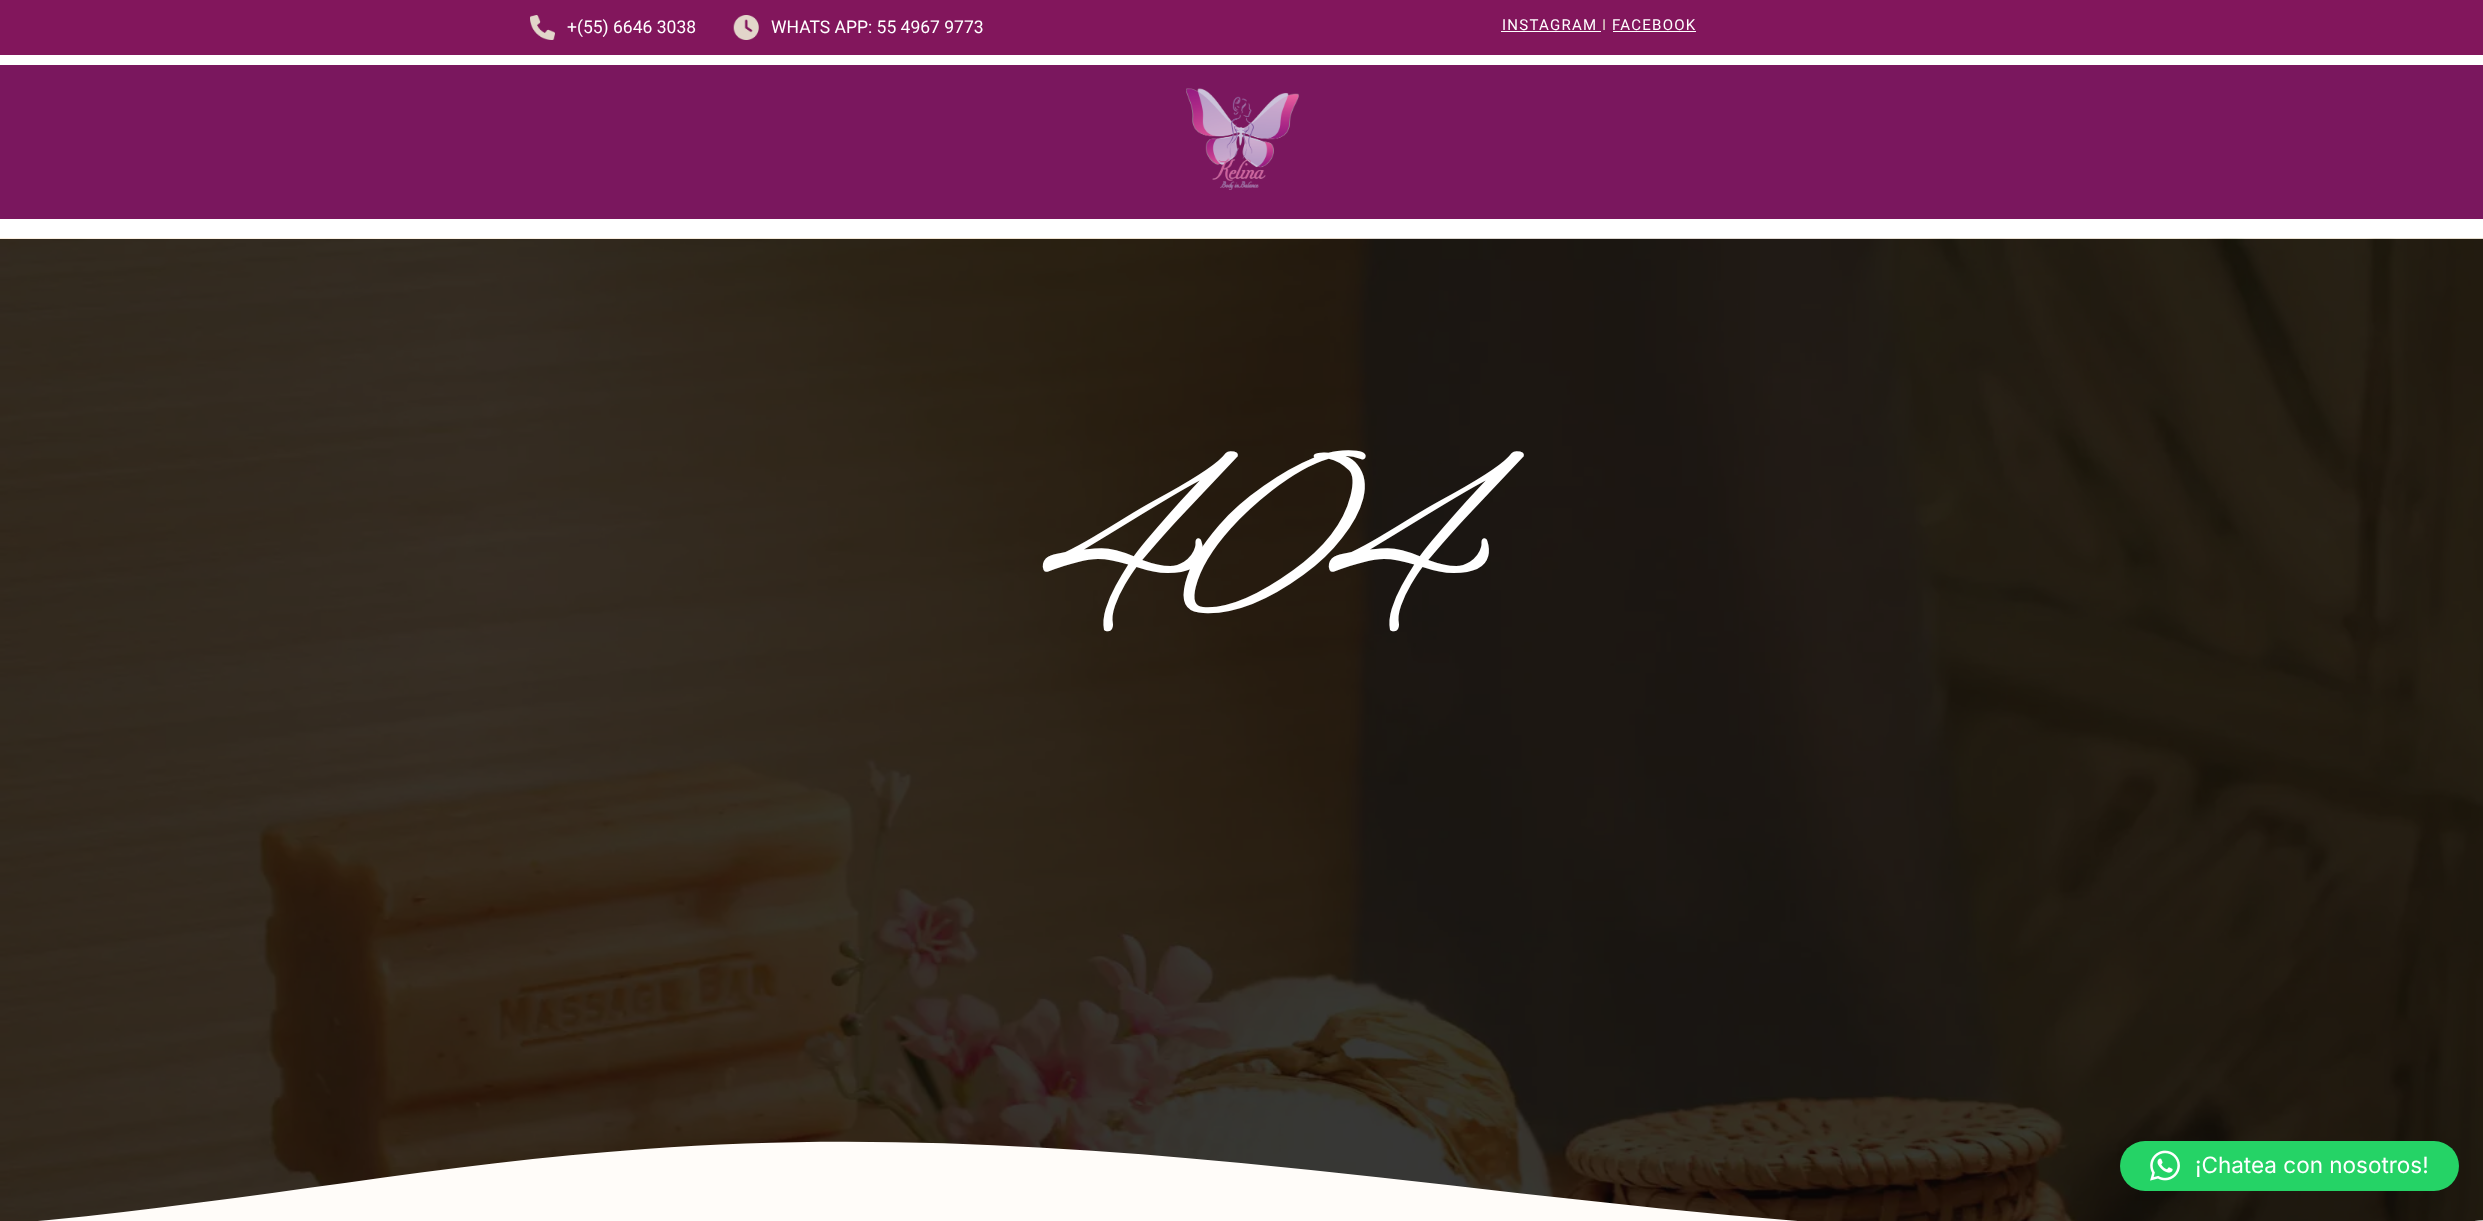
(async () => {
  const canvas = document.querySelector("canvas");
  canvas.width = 2483;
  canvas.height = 1221;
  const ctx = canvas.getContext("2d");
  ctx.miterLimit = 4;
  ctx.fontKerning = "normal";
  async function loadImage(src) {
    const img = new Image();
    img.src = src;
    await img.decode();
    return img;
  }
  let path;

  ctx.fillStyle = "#ffffff";
  ctx.fillRect(0, 0, 2483, 1221);
  ctx.fillStyle = "#82165c";
  ctx.fillRect(0, 0, 2483, 55);
  ctx.drawImage(await loadImage("img/1.png"), 530, 15, 25, 25);
  ctx.drawImage(await loadImage("img/2.png"), 733, 15, 26, 25);
  for (const [x, y, w, h, color] of [
    [1501, 31, 100, 1, "#ffffff"],
    [1613, 31, 83, 1, "#ffffff"],
    [0, 65, 2483, 154, "#7a175e"],
  ]) {
    ctx.fillStyle = color;
    ctx.fillRect(x, y, w, h);
  }
  ctx.drawImage(await loadImage("img/3.png"), 1186, 88, 113, 102);
  ctx.drawImage(await loadImage("img/4.png"), 0, 238, 2483, 983);
  ctx.fillStyle = "#fffcf9";
  path = new Path2D("M-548 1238H-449C-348 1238-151 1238 49 1220C248 1201 445 1163 645 1149C845 1134 1041 1144 1241 1163C1441 1182 1638 1210 1838 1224C2037 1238 2234 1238 2434 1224C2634 1210 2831 1182 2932 1167L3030 1153V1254H-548Z");
  ctx.fill(path, "evenodd");
  ctx.fillStyle = "#25d366";
  ctx.beginPath();
  ctx.roundRect(2120, 1141, 339, 50, 25);
  ctx.fill();
  ctx.drawImage(await loadImage("img/5.png"), 2150, 1150, 30, 31);
  ctx.font = "17.5px Roboto";
  ctx.fillStyle = "#ffffff";
  ctx.fillText("+(55) 6646 3038", 567, 33);
  ctx.fillText("WHATS APP: 55 4967 9773", 771, 33);
  ctx.letterSpacing = "1.25px";
  ctx.font = "15px Roboto";
  ctx.fillText("INSTAGRAM", 1502, 30);
  ctx.fillStyle = "#e1d6cb";
  ctx.fillText("I", 1602, 30);
  ctx.fillStyle = "#ffffff";
  ctx.fillText("FACEBOOK", 1612, 30);
  ctx.letterSpacing = "0px";
  ctx.font = "italic 250px Alex Brush";
  ctx.fillText("404", 1028, 611);
  ctx.font = "22.5px Inter";
  ctx.fillText("¡Chatea con nosotros!", 2195, 1173);
})();
